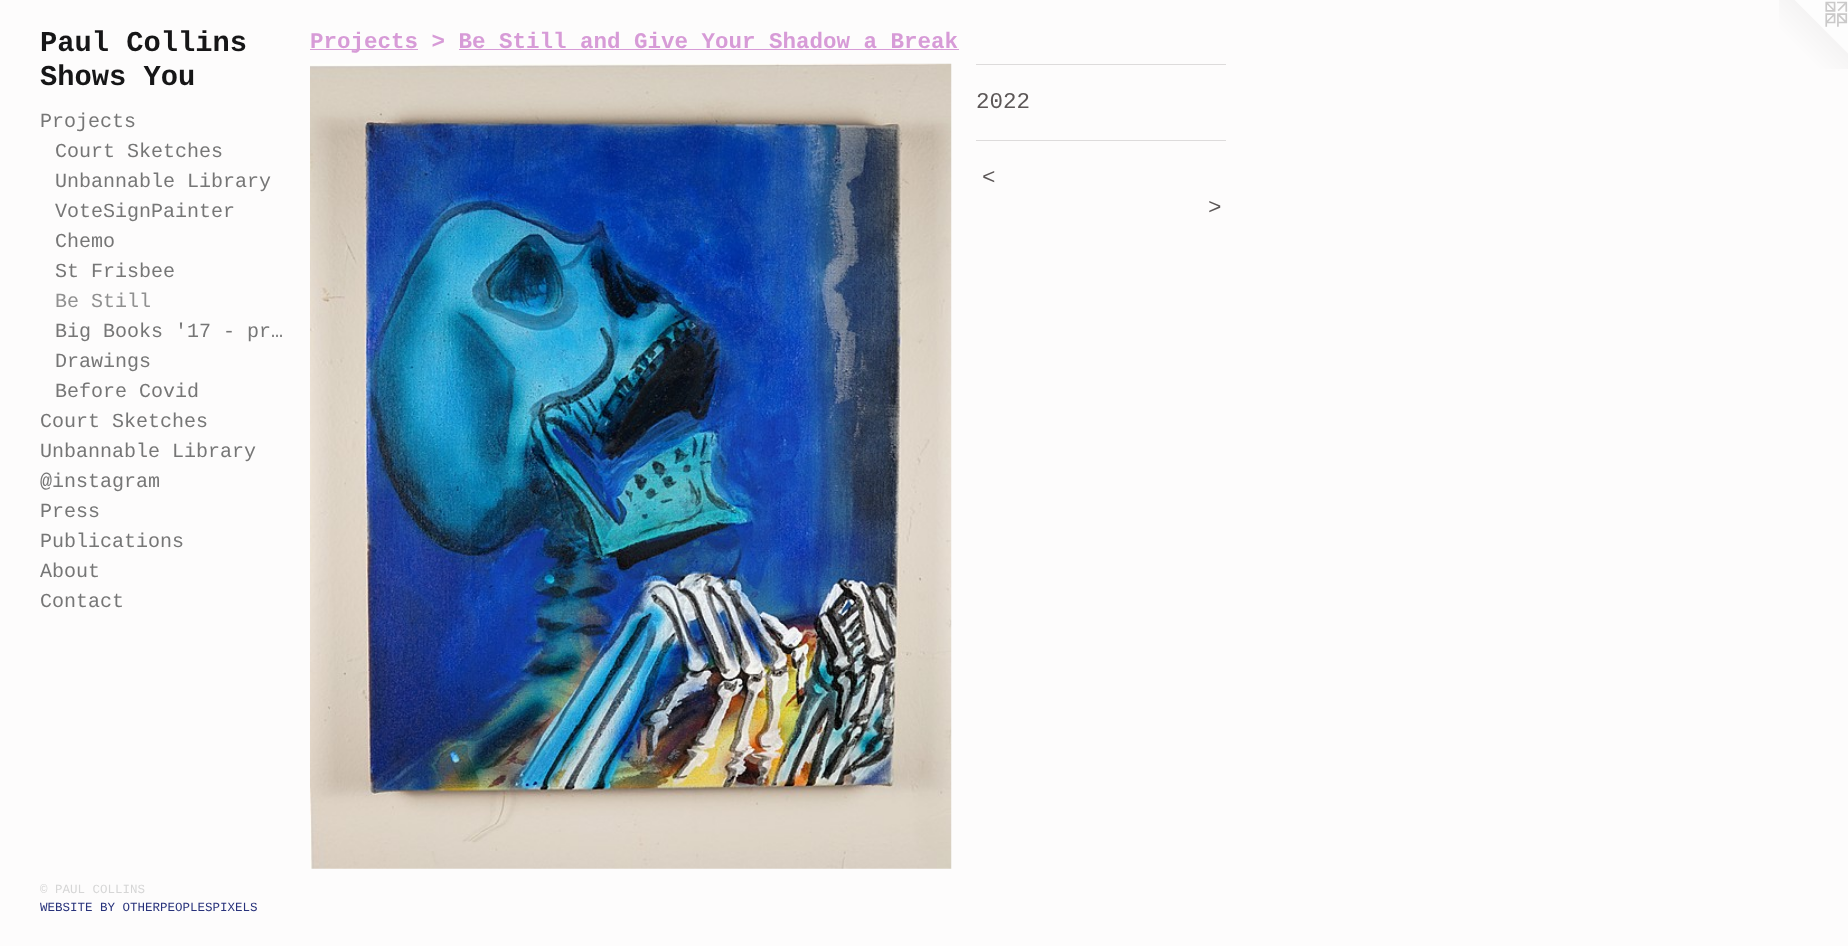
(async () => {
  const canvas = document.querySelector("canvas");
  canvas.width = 1848;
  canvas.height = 946;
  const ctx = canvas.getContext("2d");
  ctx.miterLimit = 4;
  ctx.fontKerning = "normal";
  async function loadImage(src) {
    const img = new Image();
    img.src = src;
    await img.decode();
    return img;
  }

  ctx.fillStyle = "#fdfcfc";
  ctx.fillRect(0, 0, 1848, 946);
  ctx.fillStyle = "#d79bd7";
  ctx.fillRect(310, 49, 108, 1);
  ctx.fillRect(459, 49, 500, 1);
  ctx.drawImage(await loadImage("img/1.png"), 310, 63, 642, 806);
  ctx.fillStyle = "#dddbdb";
  ctx.fillRect(976, 64, 250, 1);
  ctx.fillRect(976, 140, 250, 1);
  ctx.drawImage(await loadImage("img/2.png"), 1779, 0, 69, 69);
  ctx.font = "bold 28.75px Liberation Mono";
  ctx.fillStyle = "#161617";
  ctx.fillText("Paul Collins", 40, 51);
  ctx.fillText("Shows You", 40, 85);
  ctx.font = "20px Liberation Mono";
  ctx.fillStyle = "#767676";
  for (const [text, x, y] of [
    ["Projects", 40, 127],
    ["Court Sketches", 55, 157],
    ["Unbannable Library", 55, 187],
    ["VoteSignPainter", 55, 217],
    ["Chemo", 55, 247],
    ["St Frisbee", 55, 277],
  ]) {
    ctx.fillText(text, x, y);
  }
  ctx.fillStyle = "#909090";
  ctx.fillText("Be Still", 55, 307);
  ctx.fillStyle = "#767676";
  for (const [text, x, y] of [
    ["Big Books '17 - pr…", 55, 337],
    ["Drawings", 55, 367],
    ["Before Covid", 55, 397],
    ["Court Sketches", 40, 427],
    ["Unbannable Library", 40, 457],
    ["@instagram", 40, 487],
    ["Press", 40, 517],
    ["Publications", 40, 547],
    ["About", 40, 577],
    ["Contact", 40, 607],
  ]) {
    ctx.fillText(text, x, y);
  }
  ctx.font = "12.5px Liberation Mono";
  ctx.fillStyle = "#d6d6d6";
  ctx.fillText("© PAUL COLLINS", 40, 893);
  ctx.fillStyle = "#28327b";
  ctx.fillText("WEBSITE BY OTHERPEOPLESPIXELS", 40, 911);
  ctx.font = "bold 22.5px Liberation Mono";
  ctx.fillStyle = "#d79bd7";
  ctx.fillText("Projects > Be Still and Give Your Shadow a Break", 310, 48);
  ctx.font = "22.5px Liberation Mono";
  ctx.fillStyle = "#5c5757";
  ctx.fillText("2022", 976, 108);
  ctx.letterSpacing = "1px";
  ctx.font = "italic 22.5px Liberation Mono";
  ctx.fillText("<", 982, 184);
  ctx.fillText(">", 1208, 214);
})();
